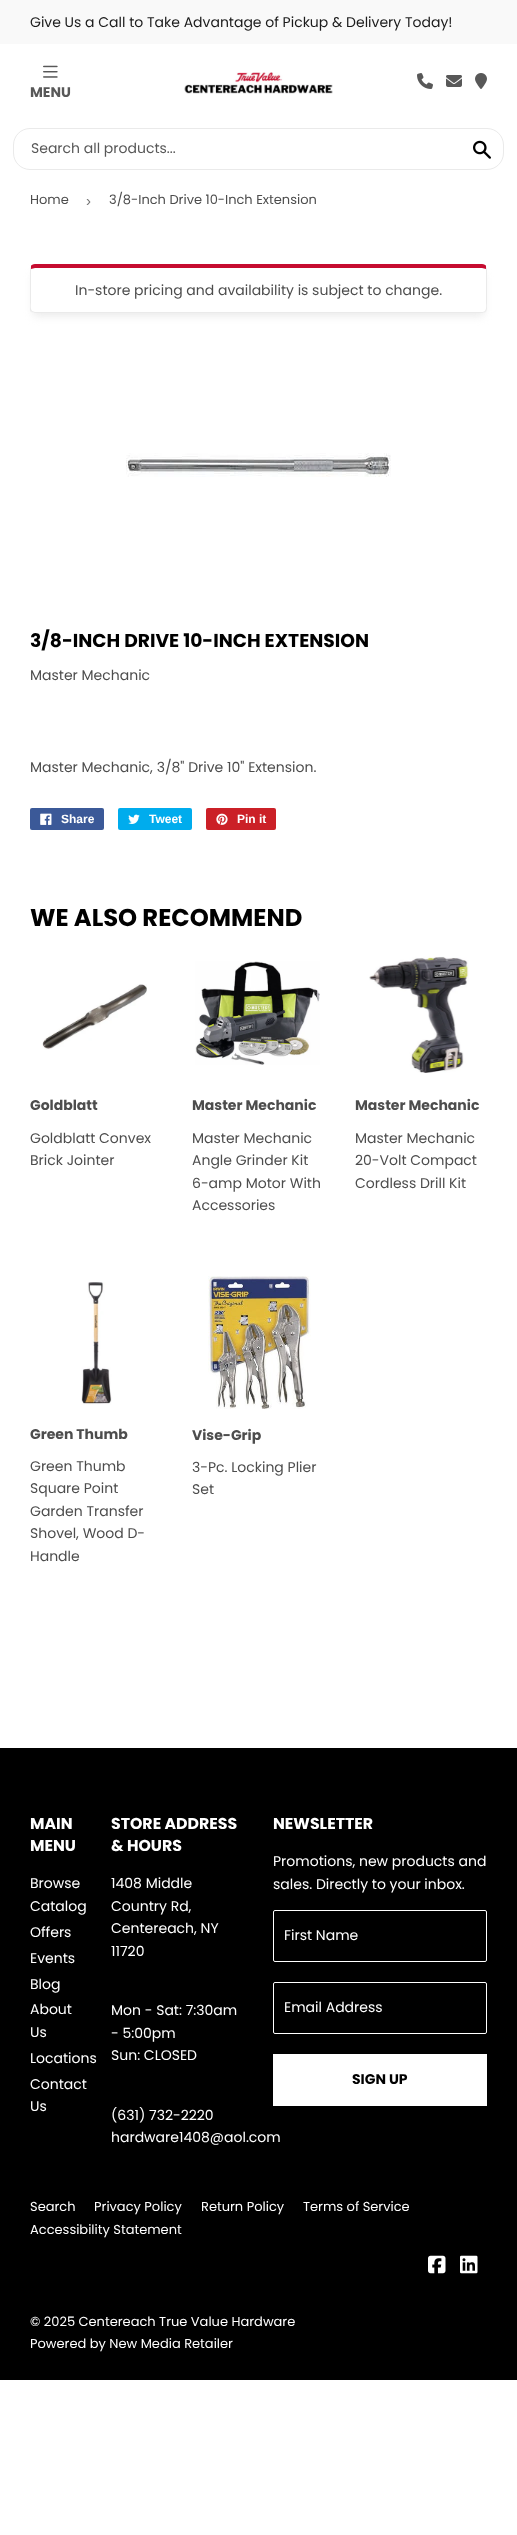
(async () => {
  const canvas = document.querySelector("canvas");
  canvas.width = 517;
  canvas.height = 2535;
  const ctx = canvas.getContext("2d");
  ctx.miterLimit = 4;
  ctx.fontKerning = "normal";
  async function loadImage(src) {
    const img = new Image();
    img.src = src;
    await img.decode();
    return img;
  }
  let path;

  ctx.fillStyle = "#ffffff";
  ctx.fillRect(0, 0, 517, 2535);
  ctx.fillStyle = "#f9f9f9";
  ctx.fillRect(0, 0, 517, 44);
  ctx.drawImage(await loadImage("img/1.png"), 184, 72, 149, 22);
  ctx.drawImage(await loadImage("img/2.png"), 417, 73, 16, 16);
  ctx.drawImage(await loadImage("img/3.png"), 446, 75, 16, 12);
  ctx.drawImage(await loadImage("img/4.png"), 475, 73, 12, 16);
  ctx.drawImage(await loadImage("img/5.png"), 43, 65, 15, 13);
  ctx.beginPath();
  ctx.roundRect(13.5, 128.5, 490, 41, 16.5);
  ctx.strokeStyle = "#eaeaea";
  ctx.stroke();
  ctx.drawImage(await loadImage("img/6.png"), 473, 140, 18, 19);
  ctx.save();
  path = new Path2D("M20 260H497V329H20ZM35 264H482C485 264 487 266 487 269V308C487 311 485 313 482 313H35C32 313 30 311 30 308V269C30 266 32 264 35 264Z");
  ctx.clip(path, "evenodd");
  ctx.fillStyle = "#eaeaea";
  ctx.filter = "blur(4px)";
  ctx.beginPath();
  ctx.roundRect(33, 273, 451, 43, 2);
  ctx.fill();
  ctx.filter = "none";
  ctx.restore();
  ctx.fillStyle = "#c60c30";
  path = new Path2D("M35 264C33 264 31 265 31 266V269L35 268H482L486 269V266C486 265 484 264 482 264Z");
  ctx.fill(path);
  ctx.fillStyle = "#eaeaea";
  path = new Path2D("M487 308V269L486 266V269V302C486 304 487 308 485 311L486 312C486 311 487 310 487 308Z");
  ctx.fill(path);
  path = new Path2D("M35 313H482C484 313 485 312 486 312L485 311L483 312H35L32 311L31 312C32 312 34 313 35 313Z");
  ctx.fill(path);
  path = new Path2D("M30 269V308C30 310 30 311 31 312L32 311C30 308 31 304 31 302V269V266Z");
  ctx.fill(path);
  ctx.drawImage(await loadImage("img/7.png"), 126, 453, 265, 24);
  ctx.fillStyle = "#3b5998";
  ctx.beginPath();
  ctx.roundRect(30, 808, 74, 22, 2);
  ctx.fill();
  ctx.drawImage(await loadImage("img/8.png"), 40, 813, 12, 12);
  ctx.fillStyle = "#00aced";
  ctx.beginPath();
  ctx.roundRect(118, 808, 74, 22, 2);
  ctx.fill();
  ctx.drawImage(await loadImage("img/9.png"), 128, 814, 12, 10);
  ctx.fillStyle = "#cb2027";
  ctx.beginPath();
  ctx.roundRect(206, 808, 70, 22, 2);
  ctx.fill();
  ctx.drawImage(await loadImage("img/10.png"), 216, 813, 12, 12);
  ctx.drawImage(await loadImage("img/11.png"), 42, 984, 105, 66);
  ctx.drawImage(await loadImage("img/12.png"), 195, 961, 125, 104);
  ctx.drawImage(await loadImage("img/13.png"), 369, 956, 100, 117);
  ctx.drawImage(await loadImage("img/14.png"), 81, 1282, 31, 123);
  ctx.drawImage(await loadImage("img/15.png"), 208, 1276, 103, 133);
  ctx.fillStyle = "#000000";
  ctx.fillRect(0, 1748, 517, 632);
  ctx.beginPath();
  ctx.roundRect(273.5, 1910.5, 213, 51, 1.5);
  ctx.strokeStyle = "#ffffff";
  ctx.stroke();
  ctx.beginPath();
  ctx.roundRect(273.5, 1982.5, 213, 51, 1.5);
  ctx.stroke();
  ctx.fillStyle = "#ffffff";
  ctx.fillRect(273, 2054, 214, 52);
  ctx.drawImage(await loadImage("img/16.png"), 428, 2255, 18, 19);
  ctx.drawImage(await loadImage("img/17.png"), 460, 2255, 18, 19);
  ctx.font = "14px Poppins";
  ctx.fillStyle = "#1b1b1b";
  ctx.fillText("Give Us a Call to Take Advantage of Pickup & Delivery Today!", 30, 27);
  ctx.font = "bold 14px Poppins";
  ctx.fillStyle = "#585858";
  ctx.fillText("MENU", 30, 97);
  ctx.font = "14px Poppins";
  ctx.fillText("Search all products...", 31, 153);
  ctx.font = "13px Poppins";
  ctx.fillStyle = "#4d4d4d";
  ctx.fillText("Home", 30, 204);
  ctx.font = "15px Liberation Sans";
  ctx.fillStyle = "#767676";
  ctx.fillText("›", 86, 206);
  ctx.font = "13px Poppins";
  ctx.fillStyle = "#4d4d4d";
  ctx.fillText("3/8-Inch Drive 10-Inch Extension", 109, 204);
  ctx.font = "14px Poppins";
  ctx.fillText("In-store pricing and availability is subject to change.", 75, 295);
  ctx.font = "bold 18.7px Poppins";
  ctx.fillStyle = "#000000";
  ctx.fillText("3/8-INCH DRIVE 10-INCH EXTENSION", 30, 647);
  ctx.font = "14px Poppins";
  ctx.fillStyle = "#4d4d4d";
  ctx.fillText("Master Mechanic", 30, 680);
  ctx.fillText("Master Mechanic, 3/8\" Drive 10\" Extension.", 30, 772);
  ctx.font = "bold 12px Liberation Sans";
  ctx.fillStyle = "#ffffff";
  for (const [text, x, y] of [
    ["Share", 61, 823],
    ["Tweet", 149, 823],
    ["Pin it", 237, 823],
  ]) {
    ctx.fillText(text, x, y);
  }
  ctx.font = "bold 24.25px Poppins";
  ctx.fillStyle = "#000000";
  ctx.fillText("WE ALSO RECOMMEND", 30, 926);
  ctx.font = "bold 14px Poppins";
  ctx.fillStyle = "#4d4d4d";
  ctx.fillText("Goldblatt", 30, 1110);
  ctx.font = "14px Poppins";
  ctx.fillText("Goldblatt Convex", 30, 1143);
  ctx.fillText("Brick Jointer", 30, 1165);
  ctx.font = "bold 14px Poppins";
  ctx.fillText("Master Mechanic", 192, 1110);
  ctx.font = "14px Poppins";
  for (const [text, x, y] of [
    ["Master Mechanic", 192, 1143],
    ["Angle Grinder Kit", 192, 1165],
    ["6-amp Motor With", 192, 1188],
    ["Accessories", 192, 1210],
  ]) {
    ctx.fillText(text, x, y);
  }
  ctx.font = "bold 14px Poppins";
  ctx.fillText("Master Mechanic", 355, 1110);
  ctx.font = "14px Poppins";
  for (const [text, x, y] of [
    ["Master Mechanic", 355, 1143],
    ["20-Volt Compact", 355, 1165],
    ["Cordless Drill Kit", 355, 1188],
  ]) {
    ctx.fillText(text, x, y);
  }
  ctx.font = "bold 14px Poppins";
  ctx.fillText("Green Thumb", 30, 1439);
  ctx.font = "14px Poppins";
  for (const [text, x, y] of [
    ["Green Thumb", 30, 1471],
    ["Square Point", 30, 1493],
    ["Garden Transfer", 30, 1516],
    ["Shovel, Wood D-", 30, 1538],
    ["Handle", 30, 1561],
  ]) {
    ctx.fillText(text, x, y);
  }
  ctx.font = "bold 14px Poppins";
  ctx.fillText("Vise-Grip", 192, 1440);
  ctx.font = "14px Poppins";
  ctx.fillText("3-Pc. Locking Plier", 192, 1472);
  ctx.fillText("Set", 192, 1494);
  ctx.font = "bold 15.75px Poppins";
  ctx.fillStyle = "#ffffff";
  ctx.fillText("MAIN", 30, 1829);
  ctx.fillText("MENU", 30, 1851);
  ctx.font = "14px Poppins";
  for (const [text, x, y] of [
    ["Browse", 30, 1888],
    ["Catalog", 30, 1911],
    ["Offers", 30, 1937],
    ["Events", 30, 1963],
    ["Blog", 30, 1989],
    ["About", 30, 2014],
    ["Us", 30, 2037],
    ["Locations", 30, 2063],
    ["Contact", 30, 2089],
    ["Us", 30, 2111],
  ]) {
    ctx.fillText(text, x, y);
  }
  ctx.font = "bold 15.75px Poppins";
  ctx.fillText("STORE ADDRESS", 111, 1829);
  ctx.fillText("& HOURS", 111, 1851);
  ctx.font = "14px Poppins";
  for (const [text, x, y] of [
    ["1408 Middle", 111, 1888],
    ["Country Rd,", 111, 1911],
    ["Centereach, NY", 111, 1933],
    ["11720", 111, 1956],
    ["Mon - Sat: 7:30am", 111, 2015],
    ["- 5:00pm", 111, 2038],
    ["Sun: CLOSED", 111, 2060],
    ["(631) 732-2220", 111, 2120],
    ["hardware1408@aol.com", 111, 2142],
  ]) {
    ctx.fillText(text, x, y);
  }
  ctx.font = "bold 15.75px Poppins";
  ctx.fillText("NEWSLETTER", 273, 1829);
  ctx.font = "14px Poppins";
  for (const [text, x, y] of [
    ["Promotions, new products and", 273, 1866],
    ["sales. Directly to your inbox.", 273, 1889],
    ["First Name", 284, 1940],
    ["Email Address", 284, 2012],
  ]) {
    ctx.fillText(text, x, y);
  }
  ctx.font = "bold 14px Poppins";
  ctx.fillStyle = "#000000";
  ctx.fillText("SIGN UP", 352, 2084);
  ctx.font = "13px Poppins";
  ctx.fillStyle = "#ffffff";
  for (const [text, x, y] of [
    ["Search", 30, 2211],
    ["Privacy Policy", 94, 2211],
    ["Return Policy", 201, 2211],
    ["Terms of Service", 303, 2211],
    ["Accessibility Statement", 30, 2234],
    ["© 2025 Centereach True Value Hardware", 30, 2326],
    ["Powered by New Media Retailer", 30, 2348],
  ]) {
    ctx.fillText(text, x, y);
  }
})();
